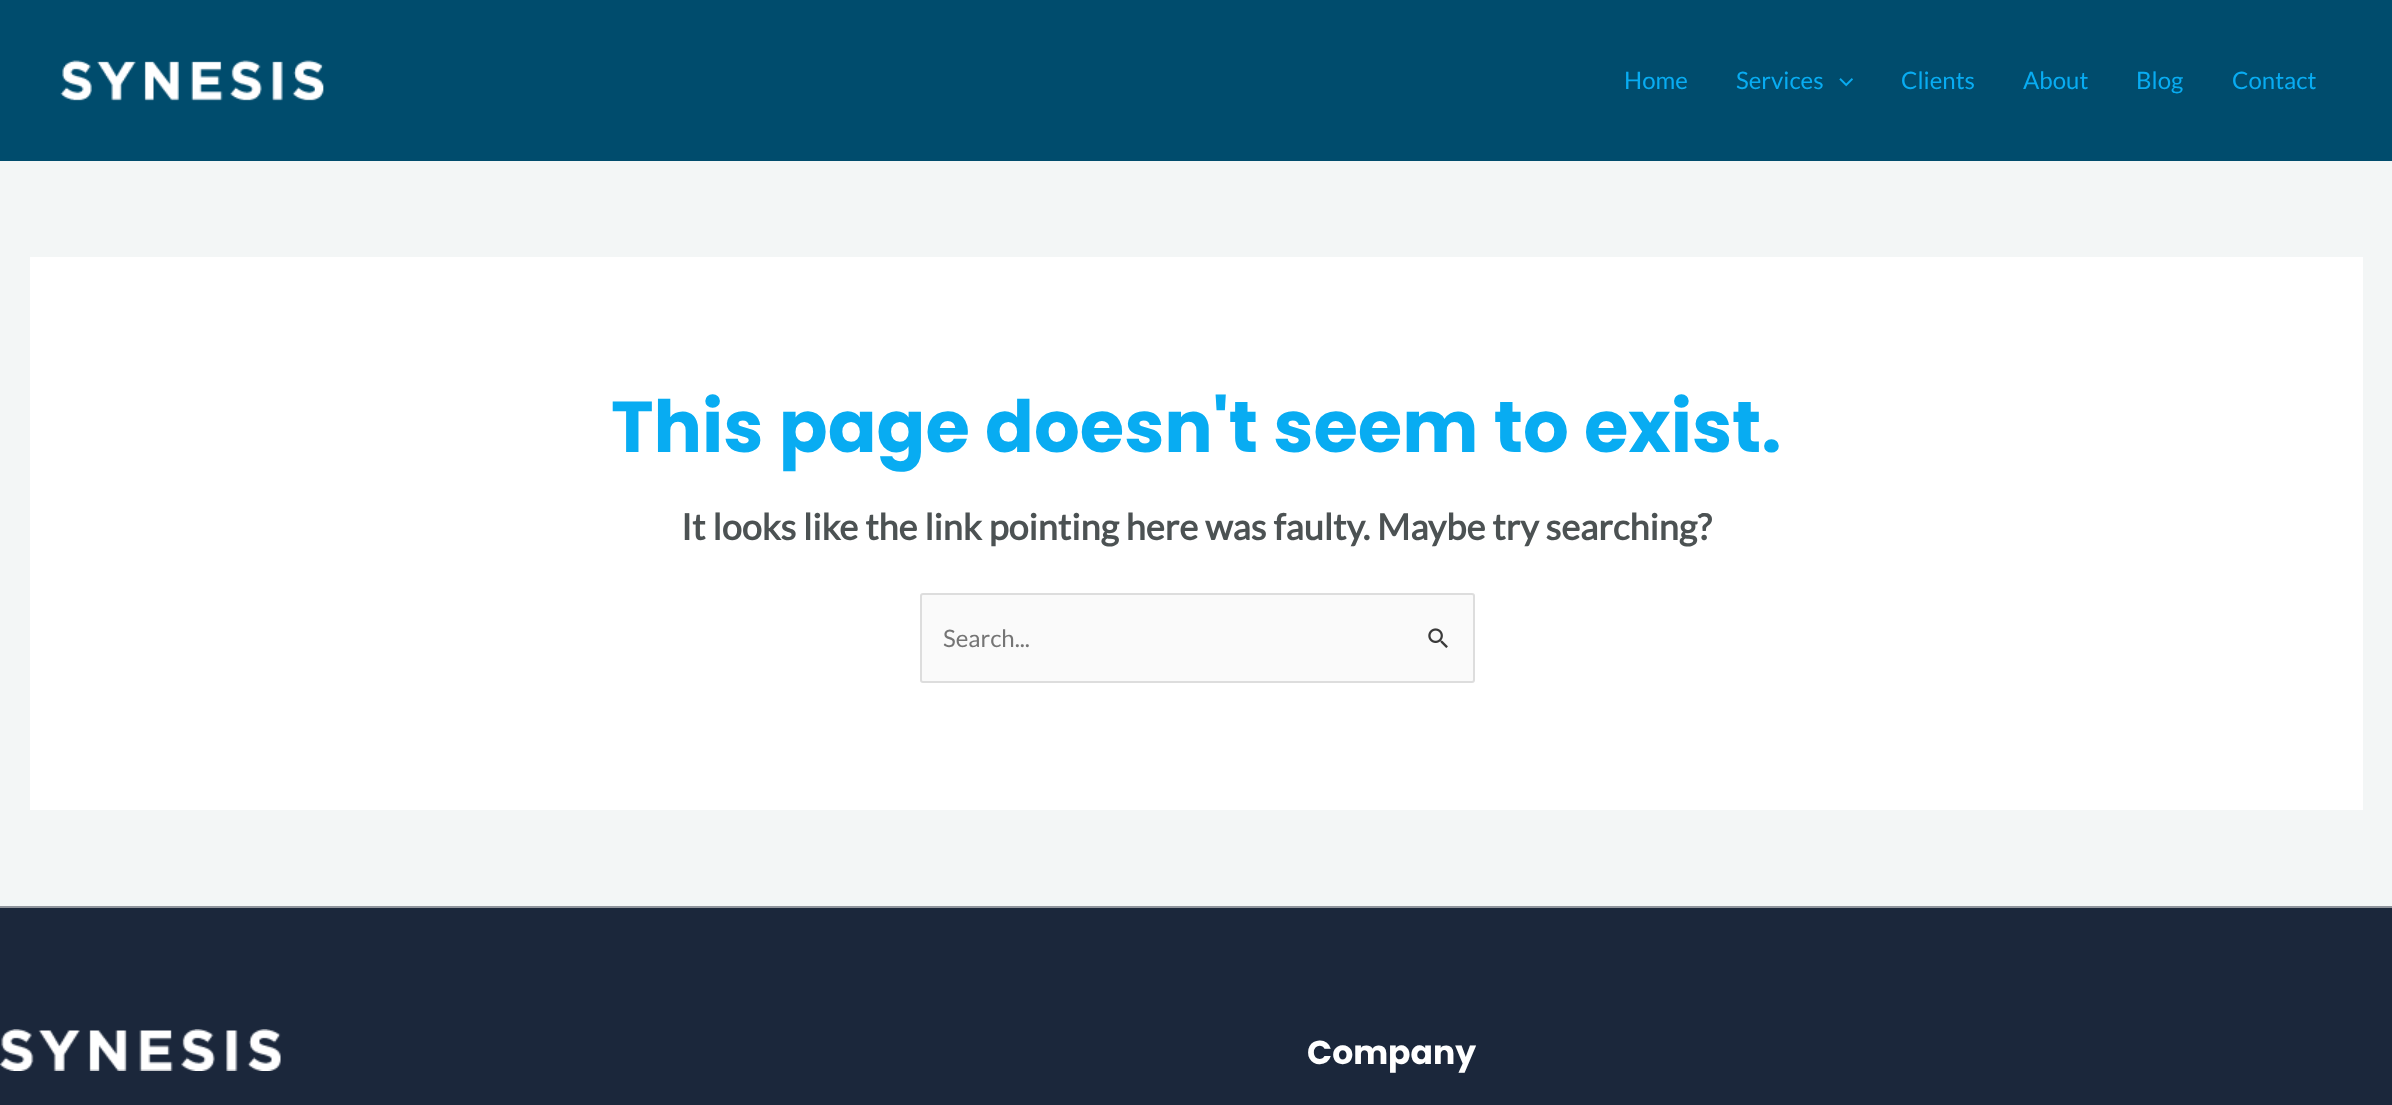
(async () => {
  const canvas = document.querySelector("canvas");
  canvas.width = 2392;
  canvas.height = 1105;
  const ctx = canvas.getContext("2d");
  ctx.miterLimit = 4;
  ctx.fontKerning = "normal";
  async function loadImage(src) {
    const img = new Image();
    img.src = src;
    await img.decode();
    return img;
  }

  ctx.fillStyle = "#f3f6f6";
  ctx.fillRect(0, 0, 2392, 1105);
  ctx.fillStyle = "#004c6d";
  ctx.fillRect(0, 0, 2392, 161);
  ctx.drawImage(await loadImage("img/1.png"), 60, 60, 264, 41);
  ctx.drawImage(await loadImage("img/2.png"), 1839, 78, 14, 9);
  ctx.fillStyle = "#ffffff";
  ctx.fillRect(30, 257, 2333, 553);
  ctx.fillStyle = "#fafafa";
  ctx.beginPath();
  ctx.roundRect(921, 594, 553, 88, 2);
  ctx.fill();
  ctx.strokeStyle = "#dddddd";
  ctx.lineWidth = 2;
  ctx.stroke();
  ctx.drawImage(await loadImage("img/3.png"), 1428, 628, 20, 20);
  ctx.fillStyle = "#1b273b";
  ctx.fillRect(0, 908, 2392, 197);
  ctx.fillStyle = "#8f949c";
  ctx.fillRect(0, 906, 2392, 2);
  ctx.drawImage(await loadImage("img/4.png"), 0, 1029, 281, 42);
  ctx.font = "24px Lato";
  ctx.fillStyle = "#08acf2";
  for (const [text, x, y] of [
    ["Home", 1624, 89],
    ["Services", 1736, 89],
    ["Clients", 1901, 89],
    ["About", 2023, 89],
    ["Blog", 2136, 89],
    ["Contact", 2232, 89],
  ]) {
    ctx.fillText(text, x, y);
  }
  ctx.font = "bold 72px Poppins";
  ctx.fillText("This page doesn't seem to exist.", 611, 452);
  ctx.font = "bold 36px Lato";
  ctx.fillStyle = "#4c5253";
  ctx.fillText("It looks like the link pointing here was faulty. Maybe try searching?", 681, 540);
  ctx.font = "24px Lato";
  ctx.fillStyle = "#757575";
  ctx.fillText("Search...", 943, 647);
  ctx.font = "bold 33px Poppins";
  ctx.fillStyle = "#ffffff";
  ctx.fillText("Company", 1307, 1064);
})();
